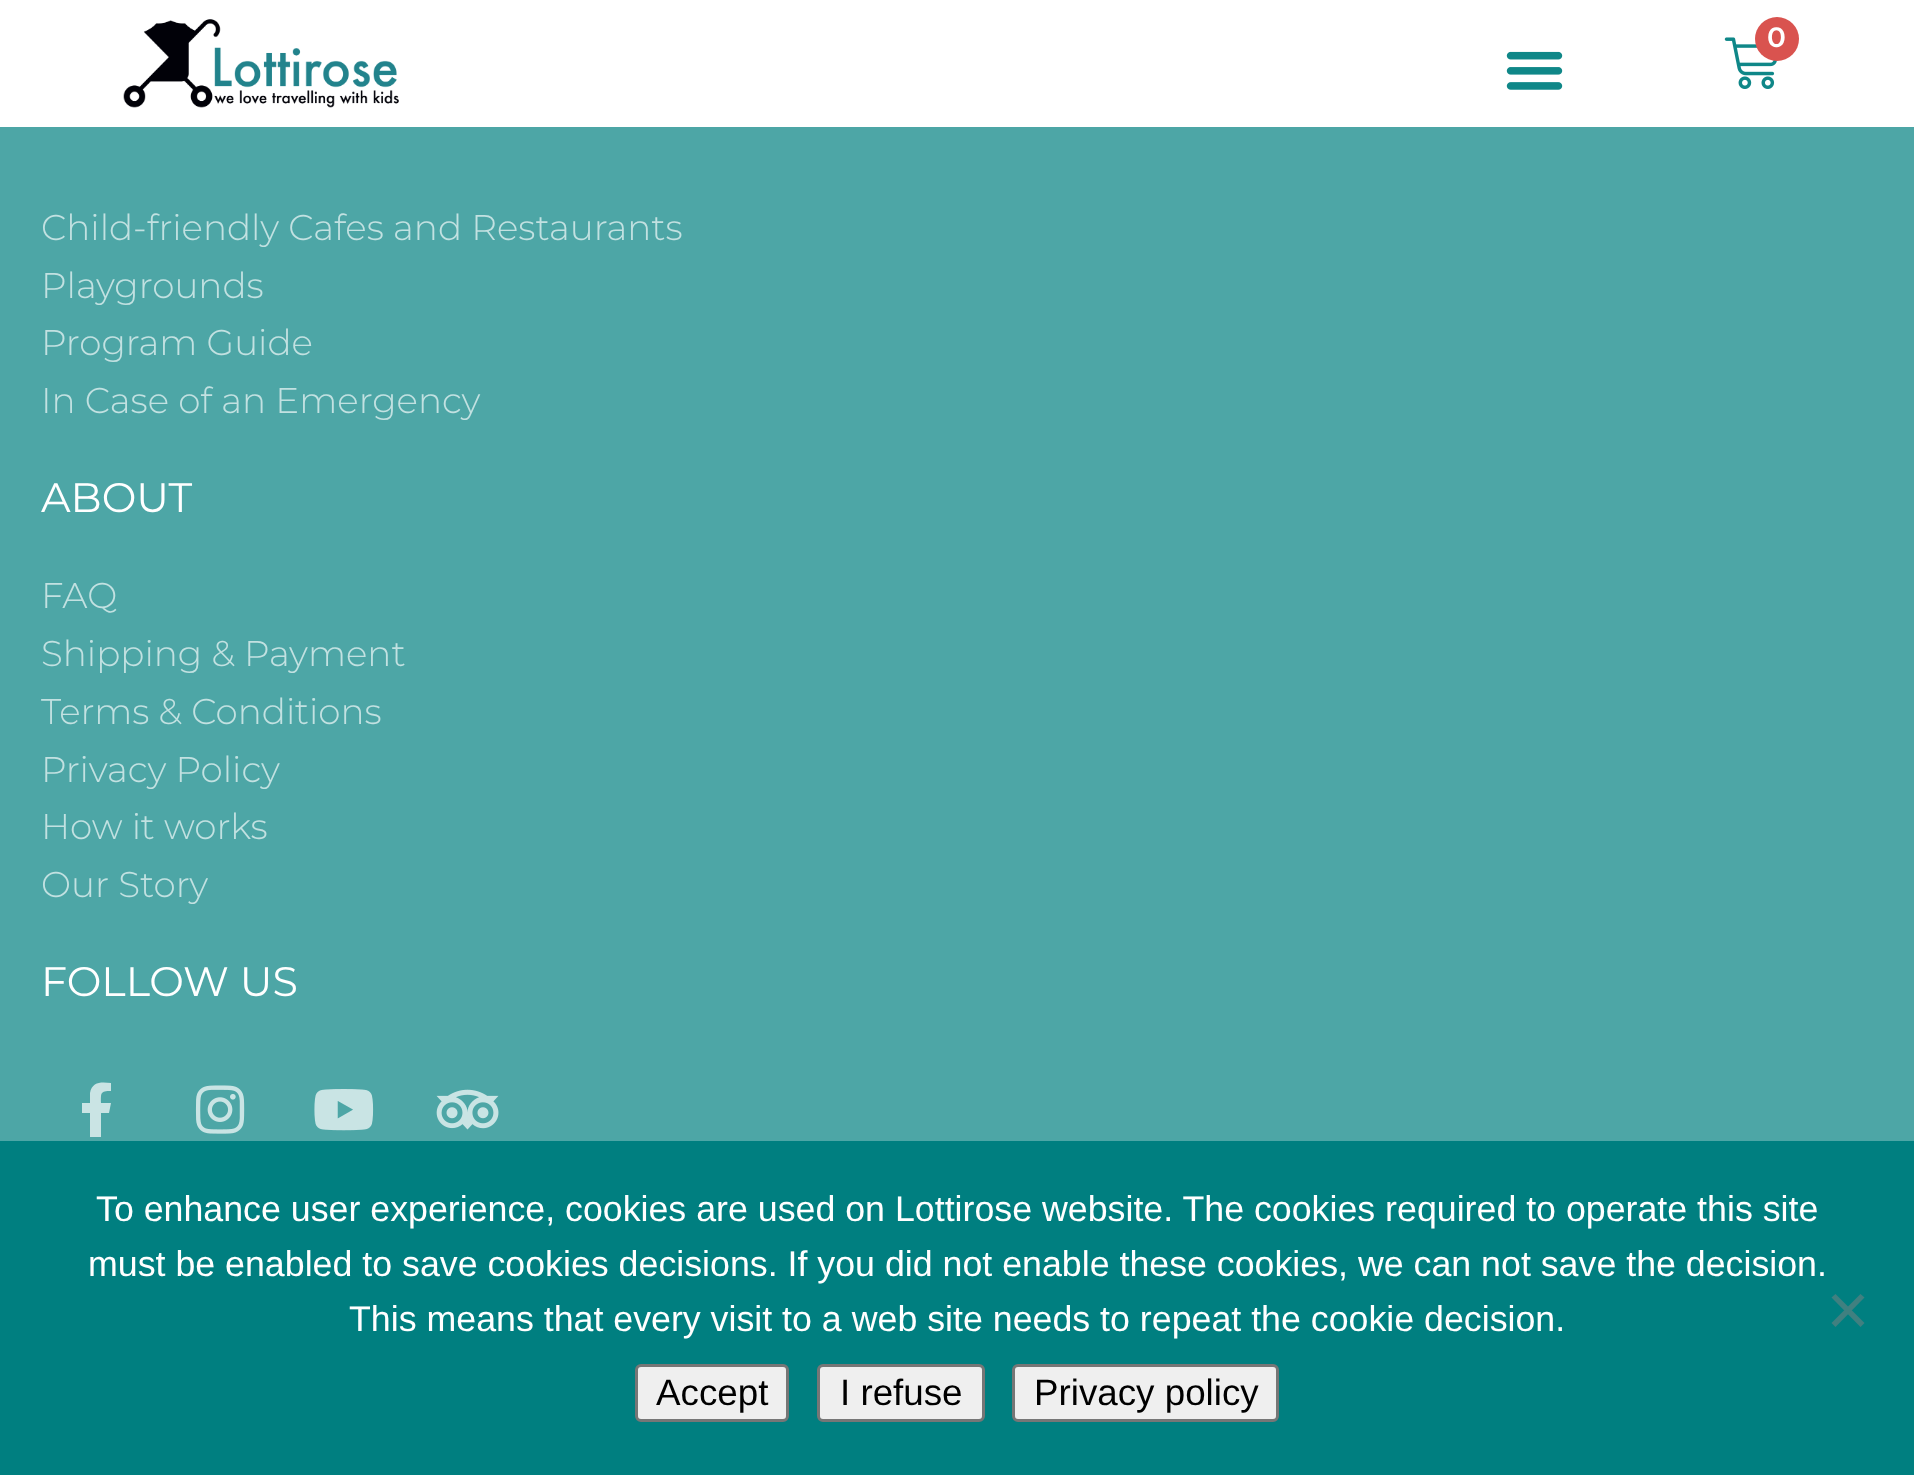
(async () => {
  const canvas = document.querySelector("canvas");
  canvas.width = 1914;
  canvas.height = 1475;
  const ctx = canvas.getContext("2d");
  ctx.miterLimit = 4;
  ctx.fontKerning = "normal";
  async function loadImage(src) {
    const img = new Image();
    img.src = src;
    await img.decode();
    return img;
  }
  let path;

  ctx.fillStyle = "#4da6a6";
  ctx.fillRect(0, 0, 1914, 1475);
  ctx.fillStyle = "#ffffff";
  ctx.fillRect(0, 0, 1914, 127);
  ctx.drawImage(await loadImage("img/1.png"), 123, 19, 276, 89);
  ctx.drawImage(await loadImage("img/2.png"), 1724, 37, 53, 52);
  ctx.fillStyle = "#d9534f";
  ctx.beginPath();
  ctx.arc(1777, 39, 22, 0, Math.PI * 2);
  ctx.fill();
  ctx.drawImage(await loadImage("img/3.png"), 1506, 51, 57, 39);
  ctx.fillStyle = "#cae4e4";
  path = new Path2D("M109 1113H101V1137H90V1113H82V1103H90V1093C92 1081 102 1082 111 1083V1091C100 1091 101 1093 101 1103H111Z");
  ctx.fill(path);
  ctx.drawImage(await loadImage("img/4.png"), 195, 1085, 50, 49);
  ctx.drawImage(await loadImage("img/5.png"), 314, 1089, 60, 42);
  ctx.drawImage(await loadImage("img/6.png"), 436, 1089, 63, 41);
  ctx.fillStyle = "#007f80";
  ctx.fillRect(0, 1141, 1914, 334);
  ctx.fillStyle = "#408080";
  path = new Path2D("M1860.5 1294L1864.5 1297.5L1835.5 1327L1831.5 1323Z");
  ctx.fill(path);
  path = new Path2D("M1831.5 1297.5L1835.5 1294L1864.5 1323L1860.5 1327Z");
  ctx.fill(path);
  ctx.fillStyle = "#efefef";
  ctx.beginPath();
  ctx.roundRect(636.5, 1365.5, 151, 55, 4.5);
  ctx.fill();
  ctx.strokeStyle = "#767676";
  ctx.lineWidth = 3;
  ctx.stroke();
  ctx.beginPath();
  ctx.roundRect(818.5, 1365.5, 165, 55, 4.5);
  ctx.fill();
  ctx.stroke();
  ctx.beginPath();
  ctx.roundRect(1013.5, 1365.5, 264, 55, 4.5);
  ctx.fill();
  ctx.stroke();
  ctx.font = "600 28px Montserrat";
  ctx.fillStyle = "#ffffff";
  ctx.fillText("0", 1767, 47);
  ctx.font = "300 35.75px Montserrat";
  ctx.fillStyle = "#c2e1e1";
  for (const [text, x, y] of [
    ["Child-friendly Cafes and Restaurants", 41, 240],
    ["Playgrounds", 41, 298],
    ["Program Guide", 41, 355],
    ["In Case of an Emergency", 41, 413],
  ]) {
    ctx.fillText(text, x, y);
  }
  ctx.font = "41.25px Montserrat";
  ctx.fillStyle = "#ffffff";
  ctx.fillText("ABOUT", 41, 512);
  ctx.font = "300 35.75px Montserrat";
  ctx.fillStyle = "#c2e1e1";
  for (const [text, x, y] of [
    ["FAQ", 41, 608],
    ["Shipping & Payment", 41, 666],
    ["Terms & Conditions", 41, 724],
    ["Privacy Policy", 41, 782],
    ["How it works", 41, 839],
    ["Our Story", 41, 897],
  ]) {
    ctx.fillText(text, x, y);
  }
  ctx.font = "41.25px Montserrat";
  ctx.fillStyle = "#ffffff";
  ctx.fillText("FOLLOW US", 41, 996);
  ctx.font = "35.75px Liberation Sans";
  for (const [text, x, y] of [
    ["To enhance user experience, cookies are used on Lottirose website. The cookies required to operate this site", 96, 1221],
    ["must be enabled to save cookies decisions. If you did not enable these cookies, we can not save the decision.", 88, 1276],
    ["This means that every visit to a web site needs to repeat the cookie decision.", 349, 1331],
  ]) {
    ctx.fillText(text, x, y);
  }
  ctx.font = "36.75px Liberation Sans";
  ctx.fillStyle = "#000000";
  for (const [text, x, y] of [
    ["Accept", 656, 1405],
    ["I refuse", 840, 1405],
    ["Privacy policy", 1034, 1405],
  ]) {
    ctx.fillText(text, x, y);
  }
})();
